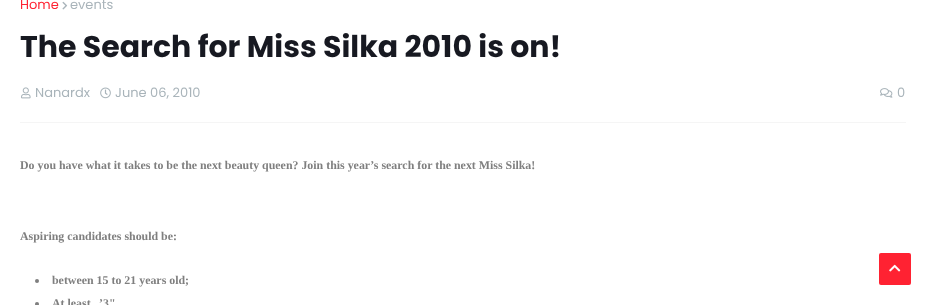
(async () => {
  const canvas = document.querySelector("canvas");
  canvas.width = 926;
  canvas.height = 305;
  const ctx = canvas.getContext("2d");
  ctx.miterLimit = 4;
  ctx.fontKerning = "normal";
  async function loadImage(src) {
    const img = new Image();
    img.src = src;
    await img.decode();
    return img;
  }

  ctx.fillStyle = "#ffffff";
  ctx.fillRect(0, 0, 926, 305);
  ctx.fillStyle = "#f5f5f5";
  ctx.fillRect(20, 122, 886, 1);
  ctx.drawImage(await loadImage("img/1.png"), 62, 1, 6, 9);
  ctx.drawImage(await loadImage("img/2.png"), 21, 87, 10, 12);
  ctx.drawImage(await loadImage("img/3.png"), 100, 87, 11, 12);
  ctx.drawImage(await loadImage("img/4.png"), 880, 88, 13, 10);
  ctx.fillStyle = "#7f7f7f";
  ctx.beginPath();
  ctx.arc(37, 281, 2, 0, Math.PI * 2);
  ctx.fill();
  ctx.beginPath();
  ctx.arc(37, 304, 2, 0, Math.PI * 2);
  ctx.fill();
  ctx.fillStyle = "#ff2232";
  ctx.beginPath();
  ctx.roundRect(879, 253, 32, 32, 2);
  ctx.fill();
  ctx.drawImage(await loadImage("img/5.png"), 889, 264, 12, 8);
  ctx.font = "13px Poppins";
  ctx.fillText("Home", 20, 9);
  ctx.fillStyle = "#a9b4ba";
  ctx.fillText("events", 70, 9);
  ctx.font = "bold 30px Poppins";
  ctx.fillStyle = "#171921";
  ctx.fillText("The Search for Miss Silka 2010 is on!", 20, 57);
  ctx.font = "13px Poppins";
  ctx.fillStyle = "#a9b4ba";
  for (const [text, x, y] of [
    ["Nanardx", 35, 97],
    ["June 06, 2010", 115, 97],
    ["0", 897, 97],
  ]) {
    ctx.fillText(text, x, y);
  }
  ctx.font = "bold 11.9px Liberation Serif";
  ctx.fillStyle = "#7f7f7f";
  for (const [text, x, y] of [
    ["Do you have what it takes to be the next beauty queen? Join this year’s search for the next Miss Silka!", 20, 169],
    ["Aspiring candidates should be:", 20, 240],
    ["between 15 to 21 years old;", 52, 284],
    ["At least", 52, 307],
    ["’3\"", 99, 307],
  ]) {
    ctx.fillText(text, x, y);
  }
})();
